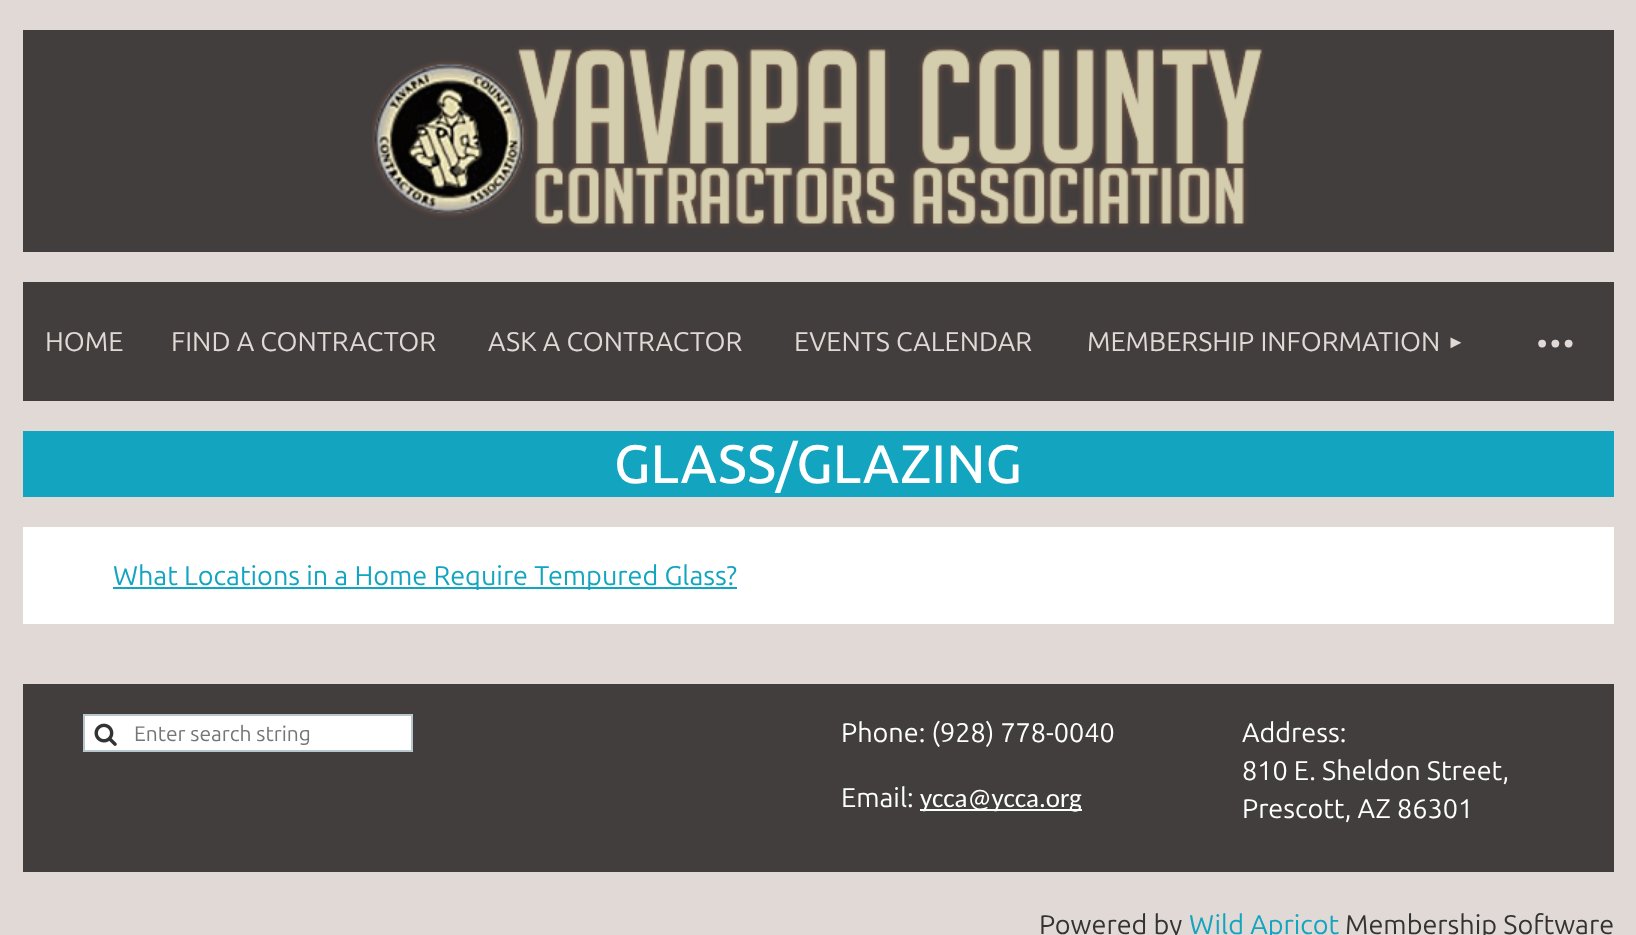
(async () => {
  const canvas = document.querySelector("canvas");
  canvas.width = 1636;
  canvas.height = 935;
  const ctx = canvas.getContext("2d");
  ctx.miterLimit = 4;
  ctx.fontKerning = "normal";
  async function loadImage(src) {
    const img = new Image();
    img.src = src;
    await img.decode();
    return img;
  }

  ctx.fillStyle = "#e1d9d6";
  ctx.fillRect(0, 0, 1636, 935);
  ctx.fillStyle = "#423e3e";
  ctx.fillRect(23, 30, 1591, 222);
  ctx.drawImage(await loadImage("img/1.png"), 372, 45, 892, 183);
  for (const [x, y, w, h, color] of [
    [23, 282, 1591, 119, "#423e3e"],
    [23, 431, 1591, 66, "#13a5bf"],
    [23, 527, 1591, 97, "#ffffff"],
    [113, 587, 624, 2, "#13a5bf"],
    [23, 684, 1591, 188, "#423e3e"],
  ]) {
    ctx.fillStyle = color;
    ctx.fillRect(x, y, w, h);
  }
  ctx.fillStyle = "#ffffff";
  ctx.beginPath();
  ctx.rect(84, 715, 328, 36);
  ctx.fill();
  ctx.strokeStyle = "#b8c6cd";
  ctx.lineWidth = 2;
  ctx.stroke();
  ctx.drawImage(await loadImage("img/2.png"), 94, 723, 23, 23);
  ctx.fillRect(920, 809, 162, 2);
  ctx.font = "27px Ubuntu";
  ctx.fillStyle = "#e1d9d6";
  for (const [text, x, y] of [
    ["HOME", 45, 351],
    ["FIND A CONTRACTOR", 171, 351],
    ["ASK A CONTRACTOR", 488, 351],
    ["EVENTS CALENDAR", 794, 351],
    ["MEMBERSHIP INFORMATION", 1087, 351],
  ]) {
    ctx.fillText(text, x, y);
  }
  ctx.font = "18px Liberation Sans";
  ctx.fillText("►", 1447, 348);
  ctx.letterSpacing = "-3px";
  ctx.font = "66px Ubuntu";
  ctx.fillText("···", 1534, 363);
  ctx.letterSpacing = "0px";
  ctx.font = "500 54px Ubuntu";
  ctx.fillStyle = "#ffffff";
  ctx.fillText("GLASS/GLAZING", 614, 483);
  ctx.font = "27px Ubuntu";
  ctx.fillStyle = "#13a5bf";
  ctx.fillText("What Locations in a Home Require Tempured Glass?", 113, 585);
  ctx.font = "21px Ubuntu";
  ctx.fillStyle = "#757575";
  ctx.fillText("Enter search string", 134, 741);
  ctx.font = "27px Ubuntu";
  ctx.fillStyle = "#ffffff";
  ctx.fillText("Phone: (928) 778-0040", 841, 742);
  ctx.fillText("Email:", 841, 807);
  ctx.font = "27px Carlito";
  ctx.fillText("ycca@ycca.org", 920, 807);
  ctx.font = "27px Ubuntu";
  for (const [text, x, y] of [
    ["Address:", 1242, 742],
    ["810 E. Sheldon Street,", 1242, 780],
    ["Prescott, AZ 86301", 1242, 818],
  ]) {
    ctx.fillText(text, x, y);
  }
  ctx.fillStyle = "#333333";
  ctx.fillText("Powered by", 1039, 934);
  ctx.fillStyle = "#13a5bf";
  ctx.fillText("Wild Apricot", 1189, 934);
  ctx.fillStyle = "#333333";
  ctx.fillText("Membership Software", 1345, 934);
})();
